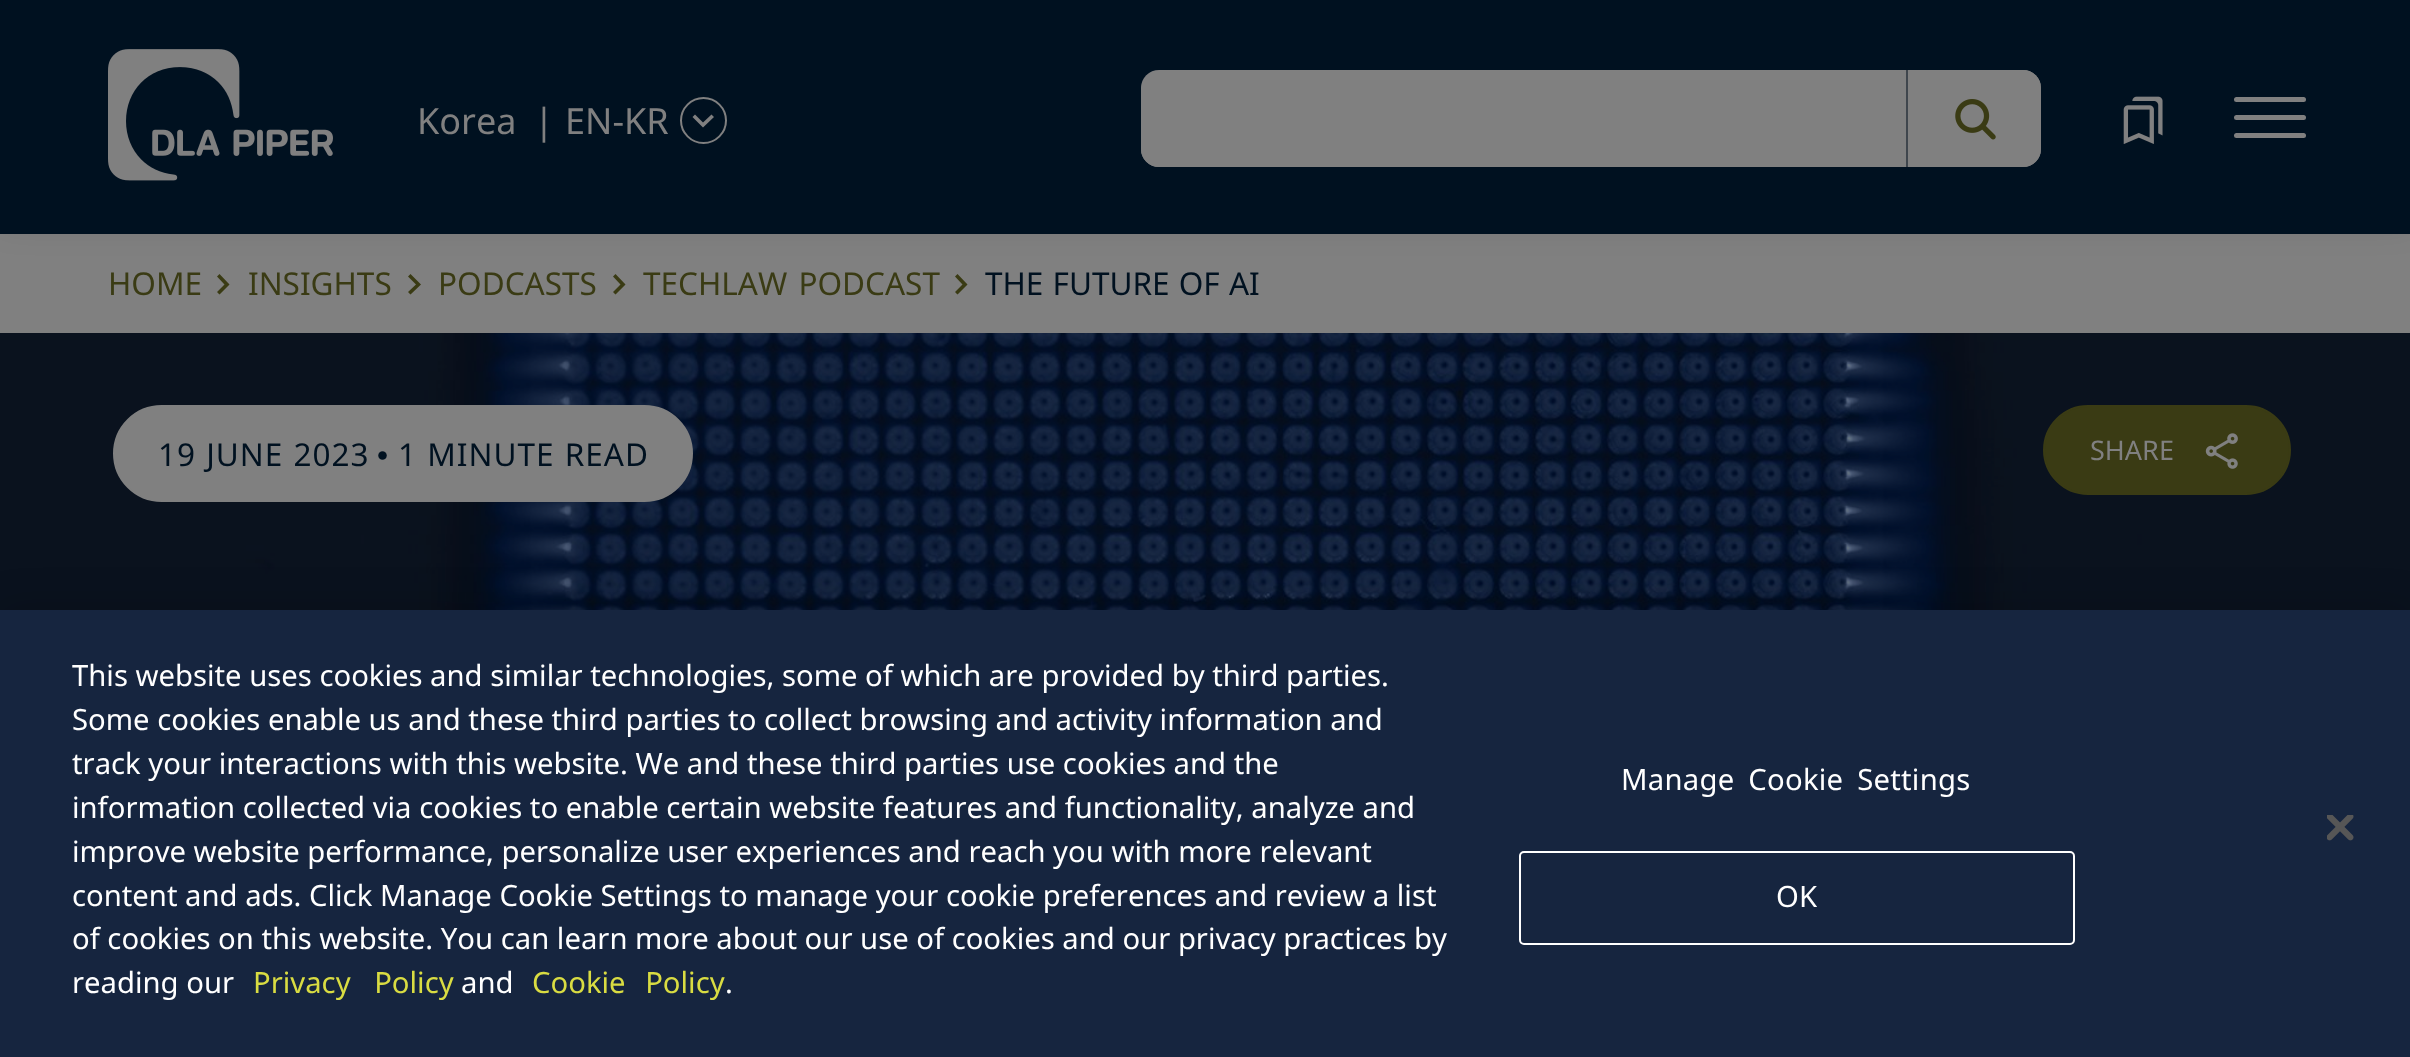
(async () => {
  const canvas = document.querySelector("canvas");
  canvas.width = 2410;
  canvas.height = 1057;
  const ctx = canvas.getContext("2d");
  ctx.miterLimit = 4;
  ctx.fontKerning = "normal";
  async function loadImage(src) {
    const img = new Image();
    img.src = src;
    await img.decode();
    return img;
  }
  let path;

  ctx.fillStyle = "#808080";
  ctx.fillRect(0, 0, 2410, 1057);
  ctx.fillStyle = "rgba(0, 6, 12, 0.15)";
  ctx.filter = "blur(17px)";
  ctx.beginPath();
  ctx.rect(0, -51, 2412, 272);
  ctx.fill();
  ctx.filter = "none";
  ctx.fillStyle = "#001120";
  ctx.fillRect(0, 0, 2410, 234);
  ctx.drawImage(await loadImage("img/1.png"), 108, 49, 132, 132);
  ctx.drawImage(await loadImage("img/2.png"), 152, 129, 181, 27);
  ctx.beginPath();
  ctx.arc(703.5, 120.5, 22.5, 0, Math.PI * 2);
  ctx.strokeStyle = "#808080";
  ctx.lineWidth = 2;
  ctx.stroke();
  ctx.fillStyle = "#808080";
  path = new Path2D("M711.5 114.5L703 122.5L695 114.5L692.5 117L703 127.5L714 117Z");
  ctx.fill(path);
  ctx.beginPath();
  ctx.roundRect(1141, 70, 900, 97, 18);
  ctx.fill();
  ctx.beginPath();
  ctx.roundRect(1141, 72, 765, 95, [18, 0, 0, 18]);
  ctx.fill();
  ctx.beginPath();
  ctx.roundRect(1906, 70, 135, 97, [0, 18, 18, 0]);
  ctx.fill();
  ctx.fillStyle = "#3f464d";
  ctx.fillRect(1906, 70, 2, 97);
  ctx.drawImage(await loadImage("img/3.png"), 1955, 99, 41, 41);
  ctx.drawImage(await loadImage("img/4.png"), 2123, 96, 40, 48);
  ctx.fillStyle = "#808080";
  ctx.beginPath();
  ctx.roundRect(2234, 97, 72, 5, 2.5);
  ctx.fill();
  ctx.beginPath();
  ctx.roundRect(2234, 115, 72, 5, 2.5);
  ctx.fill();
  ctx.beginPath();
  ctx.roundRect(2234, 133, 72, 5, 2.5);
  ctx.fill();
  ctx.fillStyle = "#3a3b14";
  path = new Path2D("M219.5 274L217 276.5L224.5 284.5L217 292L219.5 294.5L229.5 284.5Z");
  ctx.fill(path);
  path = new Path2D("M410.5 274L408 276.5L416 284.5L408 292L410.5 294.5L421 284.5Z");
  ctx.fill(path);
  path = new Path2D("M615.5 274L613 276.5L620.5 284.5L613 292L615.5 294.5L625.5 284.5Z");
  ctx.fill(path);
  path = new Path2D("M957.5 274L955 276.5L962.5 284.5L955 292L957.5 294.5L967.5 284.5Z");
  ctx.fill(path);
  ctx.drawImage(await loadImage("img/5.png"), 0, 333, 2410, 277);
  ctx.fillStyle = "#808080";
  ctx.beginPath();
  ctx.roundRect(114, 406, 578, 95, 47.5);
  ctx.fill();
  ctx.stroke();
  ctx.fillStyle = "#3a3b14";
  ctx.beginPath();
  ctx.roundRect(2044, 406, 246, 88, 44);
  ctx.fill();
  ctx.strokeStyle = "#3a3b14";
  ctx.stroke();
  ctx.drawImage(await loadImage("img/6.png"), 2205, 433, 33, 36);
  ctx.fillStyle = "rgba(0, 0, 0, 0.2)";
  ctx.filter = "blur(20px)";
  ctx.beginPath();
  ctx.rect(0, 610, 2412, 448);
  ctx.fill();
  ctx.filter = "none";
  ctx.fillStyle = "#16253f";
  ctx.fillRect(0, 610, 2410, 447);
  ctx.beginPath();
  ctx.roundRect(1520, 852, 554, 92, 4);
  ctx.strokeStyle = "#ffffff";
  ctx.stroke();
  ctx.drawImage(await loadImage("img/7.png"), 2327, 815, 27, 26);
  ctx.font = "36px Noto Sans";
  ctx.fillStyle = "#808080";
  for (const [text, x, y] of [
    ["Korea", 417, 134],
    ["|", 534, 134],
    ["EN-KR", 565, 134],
  ]) {
    ctx.fillText(text, x, y);
  }
  ctx.font = "31.5px Noto Sans";
  ctx.fillStyle = "#3a3b14";
  for (const [text, x, y] of [
    ["HOME", 108, 295],
    ["INSIGHTS", 248, 295],
    ["PODCASTS", 438, 295],
  ]) {
    ctx.fillText(text, x, y);
  }
  ctx.wordSpacing = "3px";
  ctx.fillText("TECHLAW PODCAST", 643, 295);
  ctx.wordSpacing = "1px";
  ctx.fillStyle = "#001120";
  ctx.fillText("THE FUTURE OF AI", 985, 295);
  ctx.letterSpacing = "1px";
  ctx.fillText("19 JUNE 2023", 158, 466);
  ctx.wordSpacing = "0px";
  ctx.font = "31.5px Liberation Sans";
  ctx.fillText("•", 377, 466);
  ctx.wordSpacing = "1px";
  ctx.font = "31.5px Noto Sans";
  ctx.fillText("1 MINUTE READ", 398, 466);
  ctx.letterSpacing = "0px";
  ctx.wordSpacing = "0px";
  ctx.font = "27px Noto Sans";
  ctx.fillStyle = "#808080";
  ctx.fillText("SHARE", 2090, 460);
  ctx.font = "29.25px Noto Sans";
  ctx.fillStyle = "#ffffff";
  for (const [text, x, y] of [
    ["This website uses cookies and similar technologies, some of which are provided by third parties.", 72, 686],
    ["Some cookies enable us and these third parties to collect browsing and activity information and", 72, 730],
    ["track your interactions with this website. We and these third parties use cookies and the", 72, 774],
    ["information collected via cookies to enable certain website features and functionality, analyze and", 72, 818],
    ["improve website performance, personalize user experiences and reach you with more relevant", 72, 862],
    ["content and ads. Click Manage Cookie Settings to manage your cookie preferences and review a list", 72, 906],
    ["of cookies on this website. You can learn more about our use of cookies and our privacy practices by", 72, 949],
    ["reading our", 72, 993],
  ]) {
    ctx.fillText(text, x, y);
  }
  ctx.wordSpacing = "16px";
  ctx.fillStyle = "#d9dc42";
  ctx.fillText("Privacy Policy", 253, 993);
  ctx.wordSpacing = "0px";
  ctx.fillStyle = "#ffffff";
  ctx.fillText("and", 461, 993);
  ctx.wordSpacing = "12px";
  ctx.fillStyle = "#d9dc42";
  ctx.fillText("Cookie Policy", 532, 993);
  ctx.wordSpacing = "0px";
  ctx.fillStyle = "#ffffff";
  ctx.fillText(".", 725, 993);
  ctx.letterSpacing = "0.25px";
  ctx.wordSpacing = "6px";
  ctx.fillText("Manage Cookie Settings", 1621, 790);
  ctx.wordSpacing = "0px";
  ctx.fillText("OK", 1776, 907);
})();
